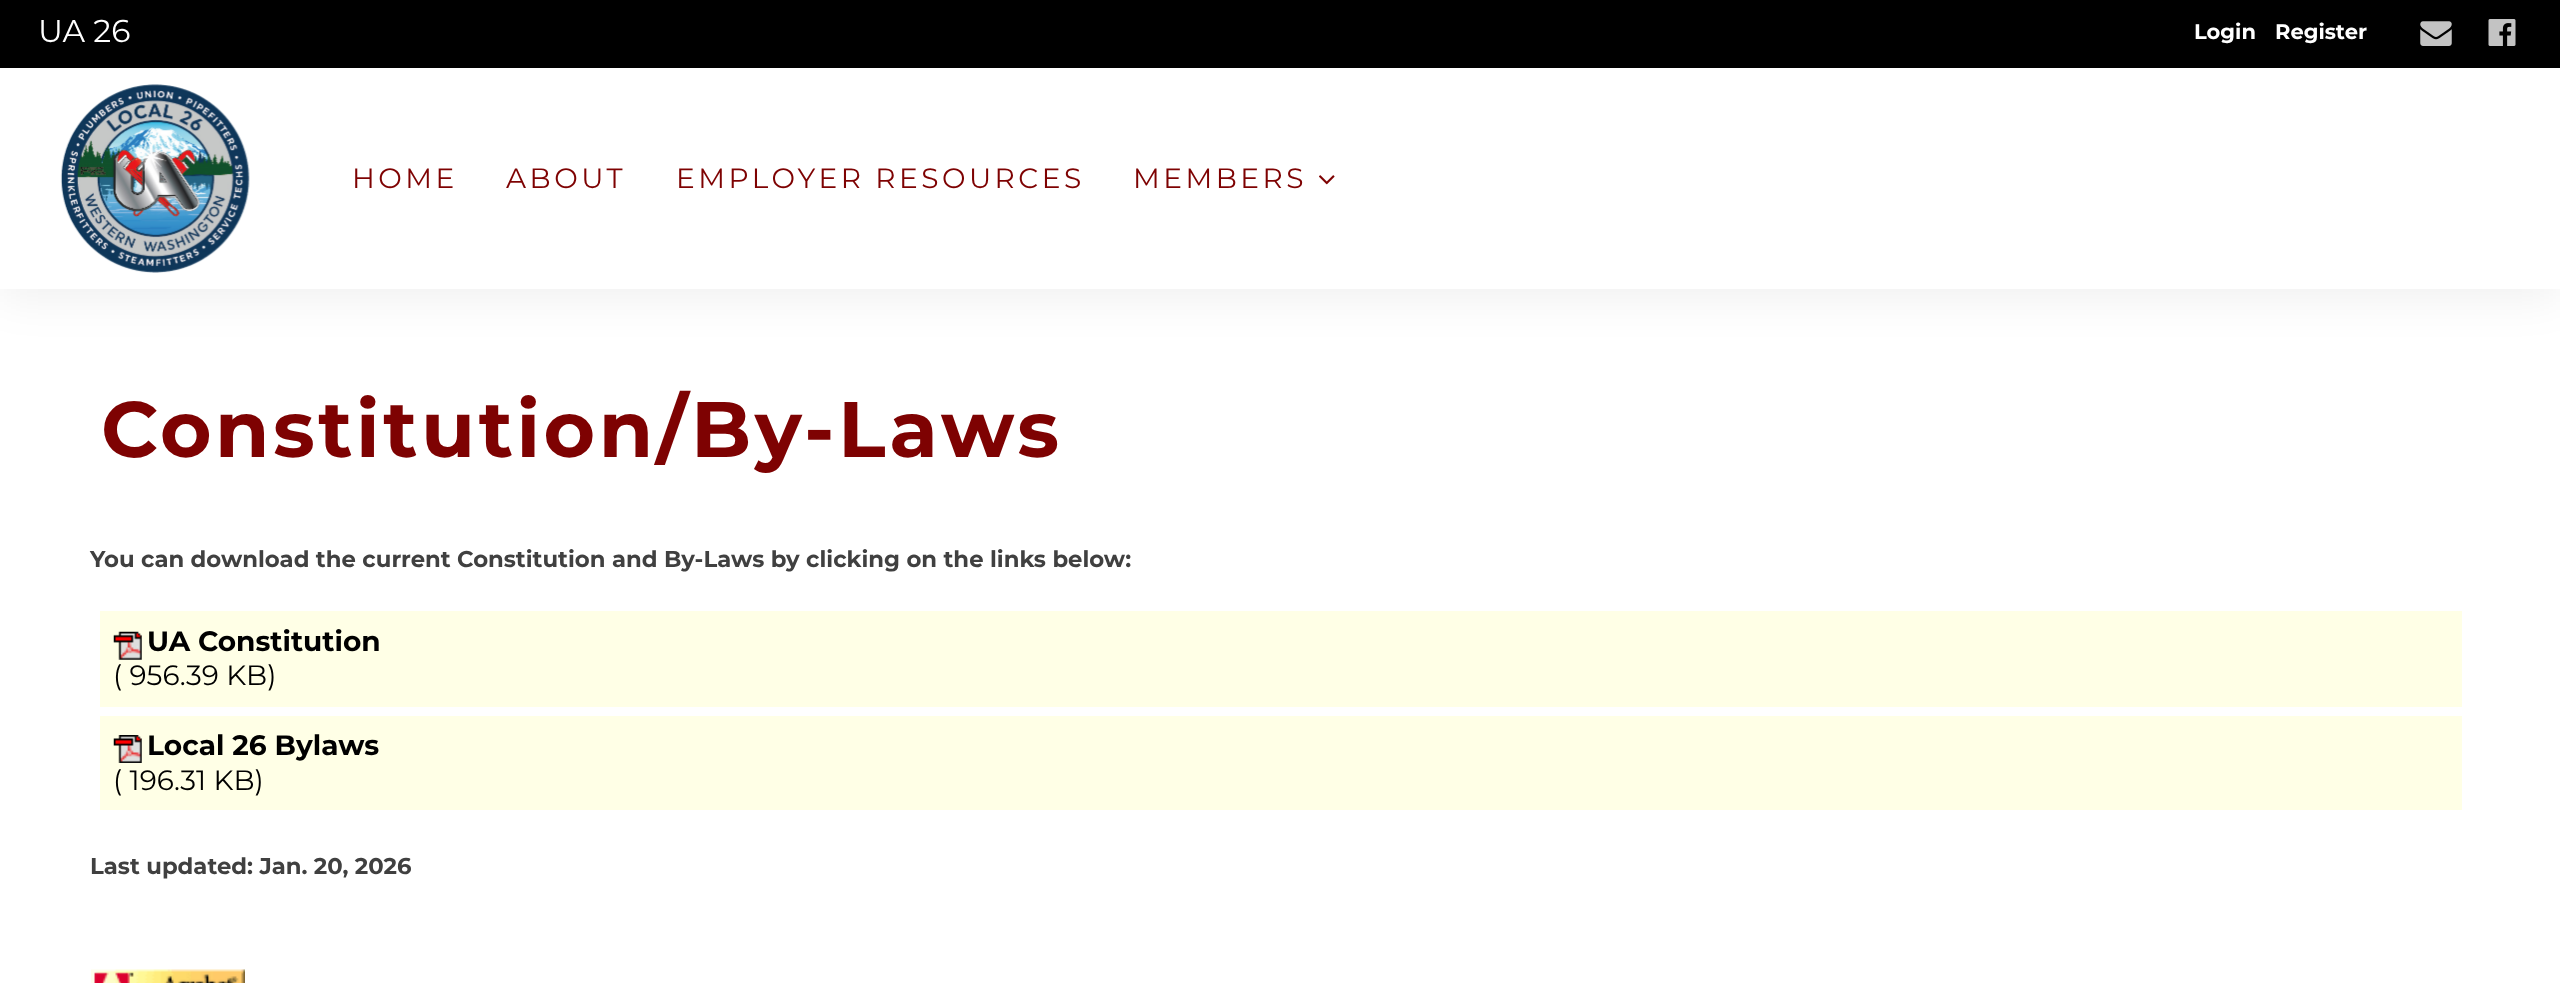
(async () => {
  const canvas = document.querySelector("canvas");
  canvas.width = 2560;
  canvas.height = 983;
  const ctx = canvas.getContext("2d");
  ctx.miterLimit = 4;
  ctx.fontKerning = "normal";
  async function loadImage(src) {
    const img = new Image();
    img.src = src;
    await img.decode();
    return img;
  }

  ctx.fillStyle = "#ffffff";
  ctx.fillRect(0, 0, 2560, 983);
  ctx.fillStyle = "rgba(0, 0, 0, 0.06)";
  ctx.filter = "blur(22px)";
  ctx.beginPath();
  ctx.rect(0, 11, 2560, 288);
  ctx.fill();
  ctx.filter = "none";
  ctx.fillStyle = "#000000";
  ctx.fillRect(0, 0, 2560, 68);
  ctx.drawImage(await loadImage("img/1.png"), 2420, 21, 32, 25);
  ctx.drawImage(await loadImage("img/2.png"), 2488, 19, 28, 27);
  ctx.fillStyle = "#ffffff";
  ctx.fillRect(0, 68, 2560, 221);
  ctx.drawImage(await loadImage("img/3.png"), 60, 84, 190, 189);
  ctx.drawImage(await loadImage("img/4.png"), 1319, 175, 16, 10);
  ctx.fillStyle = "#ffffe6";
  ctx.fillRect(100, 611, 2362, 96);
  ctx.drawImage(await loadImage("img/5.png"), 113, 631, 29, 29);
  ctx.fillRect(100, 716, 2362, 94);
  ctx.drawImage(await loadImage("img/6.png"), 113, 735, 29, 28);
  ctx.drawImage(await loadImage("img/7.png"), 91, 969, 154, 14);
  ctx.font = "31.5px Montserrat";
  ctx.fillStyle = "#ffffff";
  ctx.fillText("UA 26", 38, 42);
  ctx.font = "bold 21px Montserrat";
  ctx.fillText("Login", 2194, 39);
  ctx.fillText("Register", 2275, 39);
  ctx.letterSpacing = "3.5px";
  ctx.font = "28px Montserrat";
  ctx.fillStyle = "#7e0202";
  for (const [text, x, y] of [
    ["HOME", 352, 188],
    ["ABOUT", 506, 188],
    ["EMPLOYER RESOURCES", 676, 188],
    ["MEMBERS", 1133, 188],
  ]) {
    ctx.fillText(text, x, y);
  }
  ctx.font = "bold 78.75px Montserrat";
  ctx.fillText("Constitution/By-Laws", 101, 457);
  ctx.letterSpacing = "0px";
  ctx.font = "bold 22.75px Montserrat";
  ctx.fillStyle = "#404040";
  ctx.fillText("You can download the current Constitution and By-Laws by clicking on the links below:", 90, 567);
  ctx.font = "bold 28px Montserrat";
  ctx.fillStyle = "#000000";
  ctx.fillText("UA Constitution", 147, 651);
  ctx.font = "28px Montserrat";
  ctx.fillText("( 956.39 KB)", 113, 685);
  ctx.font = "bold 28px Montserrat";
  ctx.fillText("Local 26 Bylaws", 147, 755);
  ctx.font = "28px Montserrat";
  ctx.fillText("( 196.31 KB)", 113, 790);
  ctx.font = "bold 22.75px Montserrat";
  ctx.fillStyle = "#404040";
  ctx.fillText("Last updated: Jan. 20, 2026", 90, 874);
})();
